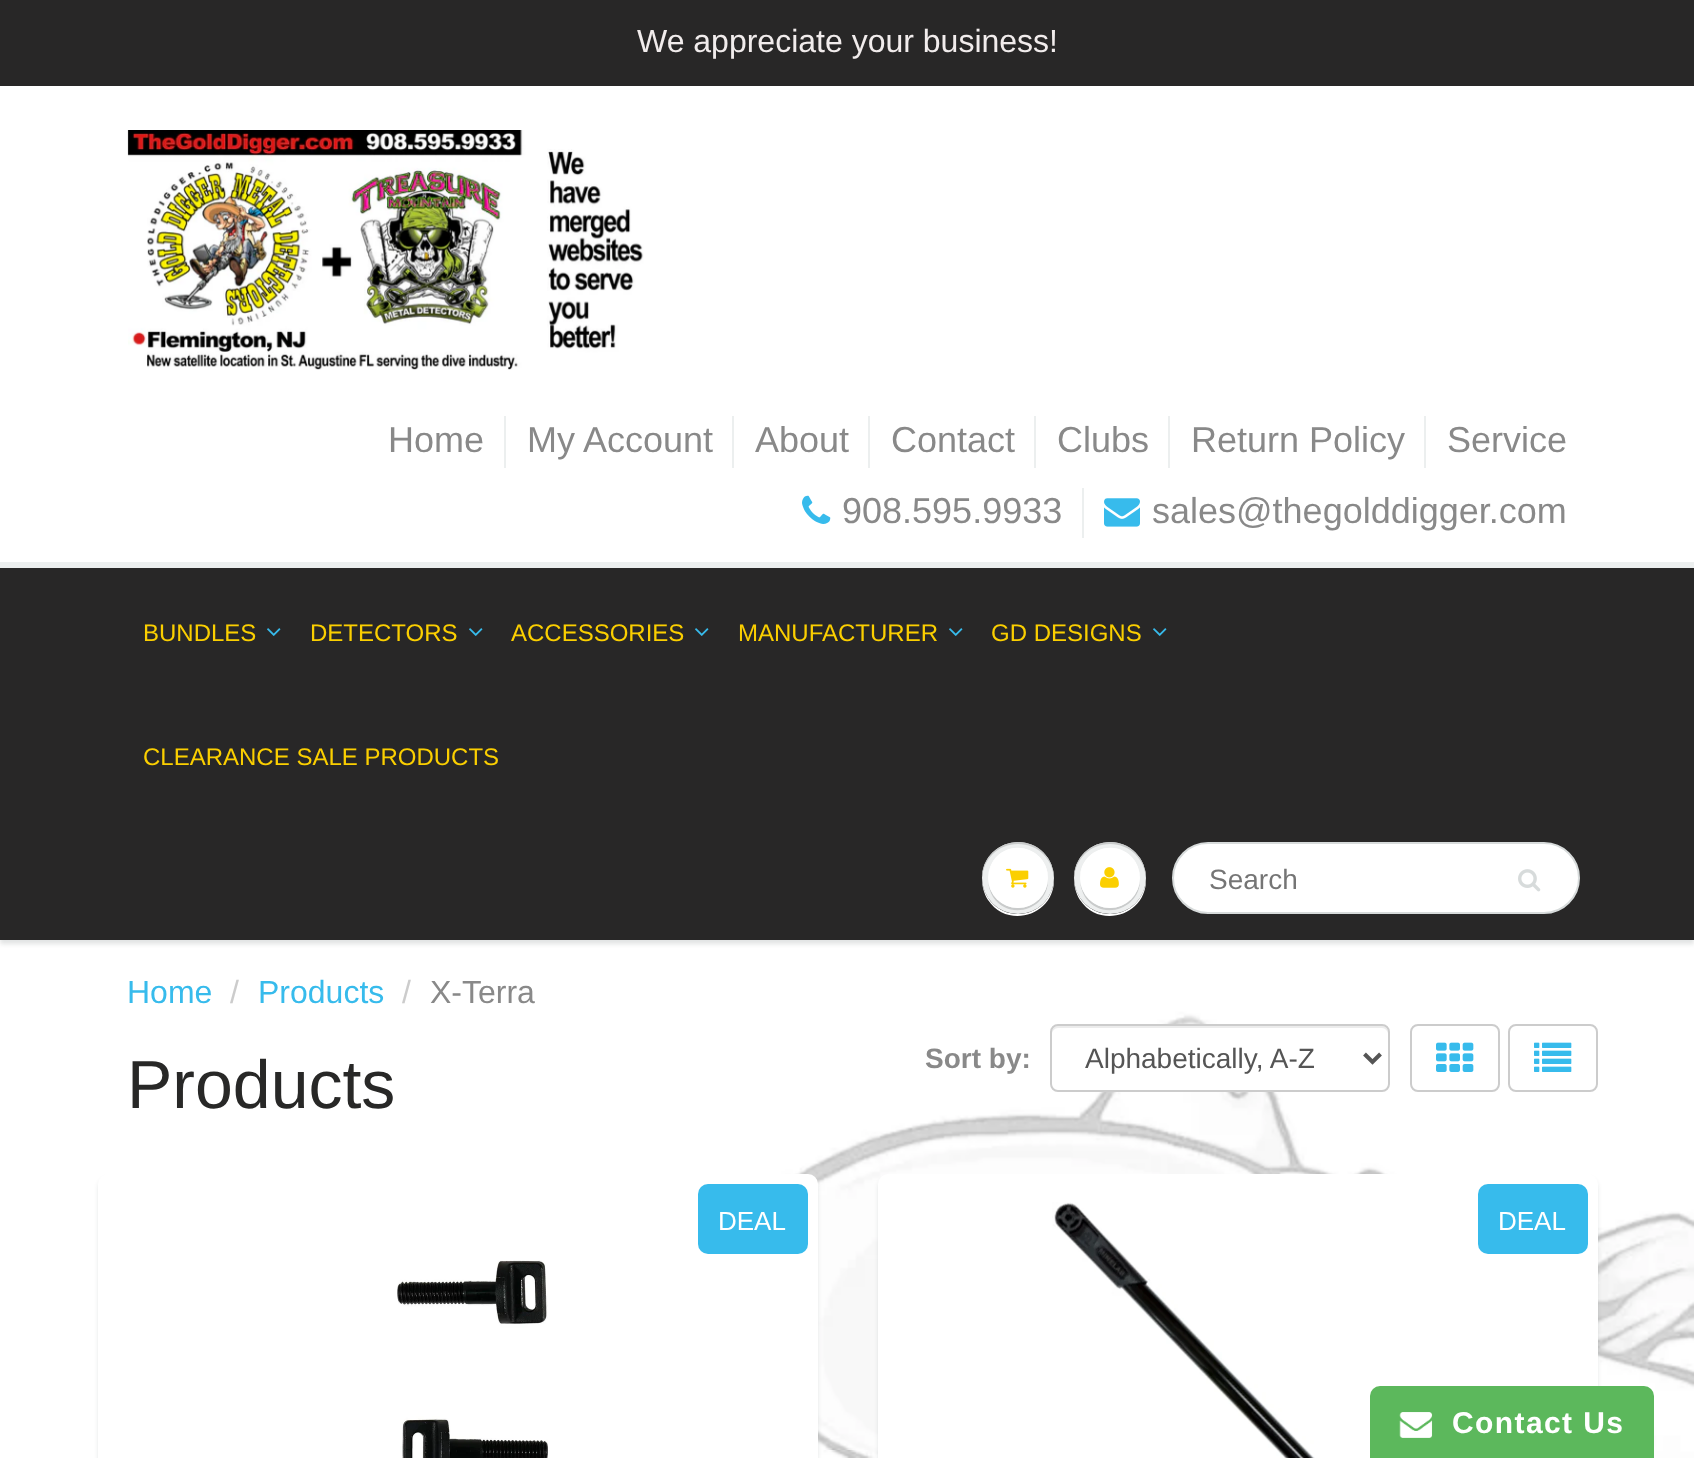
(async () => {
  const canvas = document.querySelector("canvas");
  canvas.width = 1694;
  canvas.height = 1458;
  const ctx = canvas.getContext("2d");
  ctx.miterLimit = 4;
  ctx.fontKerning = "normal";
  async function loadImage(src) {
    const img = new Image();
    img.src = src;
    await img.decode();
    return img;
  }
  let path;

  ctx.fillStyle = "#ffffff";
  ctx.fillRect(0, 0, 1694, 1458);
  ctx.fillStyle = "#282727";
  ctx.fillRect(0, 0, 1694, 86);
  ctx.drawImage(await loadImage("img/1.png"), 127, 130, 517, 240);
  for (const [x, y, w, h, color] of [
    [504, 416, 2, 52, "#ecefef"],
    [732, 416, 2, 52, "#ecefef"],
    [868, 416, 2, 52, "#ecefef"],
    [1034, 416, 2, 52, "#ecefef"],
    [1168, 416, 2, 52, "#ecefef"],
    [1424, 416, 2, 52, "#ecefef"],
  ]) {
    ctx.fillStyle = color;
    ctx.fillRect(x, y, w, h);
  }
  ctx.drawImage(await loadImage("img/2.png"), 802, 495, 29, 29);
  ctx.fillRect(1082, 488, 2, 50);
  ctx.drawImage(await loadImage("img/3.png"), 1104, 498, 36, 29);
  ctx.drawImage(await loadImage("img/8.png"), 0, 940, 1694, 518);
  ctx.fillStyle = "rgba(11, 25, 28, 0.12)";
  ctx.filter = "blur(2px)";
  ctx.beginPath();
  ctx.rect(0, 566, 1694, 378);
  ctx.fill();
  ctx.filter = "none";
  ctx.fillStyle = "#282727";
  ctx.fillRect(0, 568, 1694, 372);
  ctx.fillStyle = "#ecefef";
  ctx.fillRect(0, 562, 1694, 6);
  ctx.drawImage(await loadImage("img/4.png"), 267, 628, 14, 8);
  ctx.drawImage(await loadImage("img/4.png"), 469, 628, 14, 8);
  ctx.drawImage(await loadImage("img/4.png"), 695, 628, 14, 8);
  ctx.drawImage(await loadImage("img/4.png"), 949, 628, 14, 8);
  ctx.drawImage(await loadImage("img/4.png"), 1153, 628, 14, 8);
  ctx.fillStyle = "#ffffff";
  path = new Path2D("M982 879C982 886 984 894 988 900C1008 930 1055 915 1054 879C1053 898 1038 914 1018 914C998 914 983 898 982 879Z");
  ctx.fill(path);
  ctx.fillStyle = "#edefef";
  ctx.beginPath();
  ctx.arc(1018, 878, 36, 0, Math.PI * 2);
  ctx.fill();
  ctx.fillStyle = "#c9cbcb";
  path = new Path2D("M1048 879C1047 895 1034 908 1018 908C1002 908 989 895 988 879C988 885 990 892 993 897C1010 922 1049 909 1048 879Z");
  ctx.fill(path);
  path = new Path2D("M1018 844C1038 844 1053 859 1054 879C1054 872 1052 864 1048 858C1028 828 981 843 982 879C983 859 998 844 1018 844Z");
  ctx.fill(path);
  ctx.fillStyle = "#ffffff";
  ctx.beginPath();
  ctx.arc(1018, 878, 30, 0, Math.PI * 2);
  ctx.fill();
  path = new Path2D("M1018 850C1035 850 1047 862 1048 879C1049 849 1010 836 993 861C990 866 988 873 988 879C989 862 1001 850 1018 850Z");
  ctx.fill(path);
  ctx.drawImage(await loadImage("img/5.png"), 1006, 868, 23, 20);
  path = new Path2D("M1074 879C1074 886 1076 894 1080 900C1100 930 1147 915 1146 879C1145 898 1130 914 1110 914C1090 914 1075 898 1074 879Z");
  ctx.fill(path);
  ctx.fillStyle = "#edefef";
  ctx.beginPath();
  ctx.arc(1110, 878, 36, 0, Math.PI * 2);
  ctx.fill();
  ctx.fillStyle = "#c9cbcb";
  path = new Path2D("M1140 879C1139 895 1126 908 1110 908C1094 908 1081 895 1080 879C1080 885 1082 892 1085 897C1102 922 1141 909 1140 879Z");
  ctx.fill(path);
  path = new Path2D("M1110 844C1130 844 1145 859 1146 879C1146 872 1144 864 1140 858C1120 828 1073 843 1074 879C1075 859 1090 844 1110 844Z");
  ctx.fill(path);
  ctx.fillStyle = "#ffffff";
  ctx.beginPath();
  ctx.arc(1110, 878, 30, 0, Math.PI * 2);
  ctx.fill();
  path = new Path2D("M1110 850C1127 850 1139 862 1140 879C1140 873 1138 866 1135 861C1118 836 1079 849 1080 879C1081 862 1093 850 1110 850Z");
  ctx.fill(path);
  ctx.drawImage(await loadImage("img/6.png"), 1100, 867, 19, 21);
  ctx.beginPath();
  ctx.roundRect(1173, 843, 406, 70, 35);
  ctx.fill();
  ctx.strokeStyle = "#d7dbdb";
  ctx.lineWidth = 2;
  ctx.stroke();
  ctx.drawImage(await loadImage("img/7.png"), 1518, 869, 23, 23);
  ctx.beginPath();
  ctx.roundRect(1050, 1024, 340, 68, 8);
  ctx.fill();
  ctx.fillStyle = "#ececec";
  path = new Path2D("M1058 1028H1382C1385 1028 1388 1031 1388 1034V1032C1388 1029 1385 1026 1382 1026H1058C1055 1026 1052 1029 1052 1032V1034C1052 1031 1055 1028 1058 1028Z");
  ctx.fill(path);
  ctx.beginPath();
  ctx.roundRect(1051, 1025, 338, 66, 7);
  ctx.strokeStyle = "#cccccc";
  ctx.stroke();
  path = new Path2D("M1364.5 1054L1372.5 1062L1380.5 1054");
  ctx.strokeStyle = "#555555";
  ctx.lineWidth = 4;
  ctx.stroke(path);
  ctx.beginPath();
  ctx.roundRect(1411, 1025, 88, 66, 7);
  ctx.strokeStyle = "#cccccc";
  ctx.lineWidth = 2;
  ctx.stroke();
  ctx.drawImage(await loadImage("img/9.png"), 1436, 1042, 38, 30);
  ctx.beginPath();
  ctx.roundRect(1509, 1025, 88, 66, 7);
  ctx.stroke();
  ctx.drawImage(await loadImage("img/10.png"), 1534, 1042, 38, 30);
  ctx.fillStyle = "rgba(11, 25, 28, 0.1)";
  ctx.filter = "blur(2px)";
  ctx.beginPath();
  ctx.roundRect(98, 1178, 720, 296, 10);
  ctx.fill();
  ctx.filter = "none";
  ctx.fillStyle = "#ffffff";
  ctx.beginPath();
  ctx.roundRect(103, 1179, 710, 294, 5);
  ctx.fill();
  ctx.strokeStyle = "#ffffff";
  ctx.lineWidth = 10;
  ctx.stroke();
  ctx.fillStyle = "#37bbec";
  ctx.beginPath();
  ctx.roundRect(698, 1184, 110, 70, 10);
  ctx.fill();
  ctx.drawImage(await loadImage("img/11.png"), 397, 1260, 151, 198);
  ctx.fillStyle = "rgba(11, 25, 28, 0.1)";
  ctx.filter = "blur(2px)";
  ctx.beginPath();
  ctx.roundRect(878, 1178, 720, 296, 10);
  ctx.fill();
  ctx.filter = "none";
  ctx.fillStyle = "#ffffff";
  ctx.beginPath();
  ctx.roundRect(878, 1174, 720, 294, 10);
  ctx.fill();
  ctx.drawImage(await loadImage("img/12.png"), 1052, 1202, 263, 256);
  ctx.fillStyle = "#37bbec";
  ctx.beginPath();
  ctx.roundRect(1478, 1184, 110, 70, 10);
  ctx.fill();
  ctx.fillStyle = "#5cb85c";
  ctx.beginPath();
  ctx.roundRect(1370, 1386, 284, 72, [10, 10, 0, 0]);
  ctx.fill();
  ctx.drawImage(await loadImage("img/13.png"), 1399, 1412, 34, 26);
  ctx.font = "32px Liberation Sans";
  ctx.fillStyle = "#f1ecec";
  ctx.fillText("We appreciate your business!", 637, 52);
  ctx.font = "36px Liberation Sans";
  ctx.fillStyle = "#898989";
  for (const [text, x, y] of [
    ["Home", 388, 452],
    ["My Account", 527, 452],
    ["About", 755, 452],
    ["Contact", 891, 452],
    ["Clubs", 1057, 452],
    ["Return Policy", 1191, 452],
    ["Service", 1447, 452],
    ["908.595.9933", 842, 523],
    ["sales@thegolddigger.com", 1152, 523],
  ]) {
    ctx.fillText(text, x, y);
  }
  ctx.font = "24px Liberation Sans";
  ctx.fillStyle = "#fbcf00";
  for (const [text, x, y] of [
    ["BUNDLES", 143, 641],
    ["DETECTORS", 310, 641],
    ["ACCESSORIES", 511, 641],
    ["MANUFACTURER", 738, 641],
    ["GD DESIGNS", 991, 641],
    ["CLEARANCE SALE PRODUCTS", 143, 765],
  ]) {
    ctx.fillText(text, x, y);
  }
  ctx.font = "28px Liberation Sans";
  ctx.fillStyle = "#757575";
  ctx.fillText("Search", 1209, 889);
  ctx.font = "32px Liberation Sans";
  ctx.fillStyle = "#37bbec";
  ctx.fillText("Home", 127, 1003);
  ctx.fillStyle = "#cccccc";
  ctx.fillText("/", 230, 1003);
  ctx.fillStyle = "#37bbec";
  ctx.fillText("Products", 258, 1003);
  ctx.fillStyle = "#cccccc";
  ctx.fillText("/", 402, 1003);
  ctx.fillStyle = "#898989";
  ctx.fillText("X-Terra", 430, 1003);
  ctx.font = "68px Liberation Sans";
  ctx.fillStyle = "#282827";
  ctx.fillText("Products", 127, 1108);
  ctx.font = "bold 28px Liberation Sans";
  ctx.fillStyle = "#898989";
  ctx.fillText("Sort by:", 925, 1068);
  ctx.font = "28px Liberation Sans";
  ctx.fillStyle = "#555555";
  ctx.fillText("Alphabetically, A-Z", 1085, 1068);
  ctx.font = "26px Liberation Sans";
  ctx.fillStyle = "#ffffff";
  ctx.fillText("DEAL", 718, 1230);
  ctx.fillText("DEAL", 1498, 1230);
  ctx.letterSpacing = "1.4px";
  ctx.font = "bold 30px Liberation Sans";
  ctx.fillText("Contact Us", 1452, 1433);
})();
